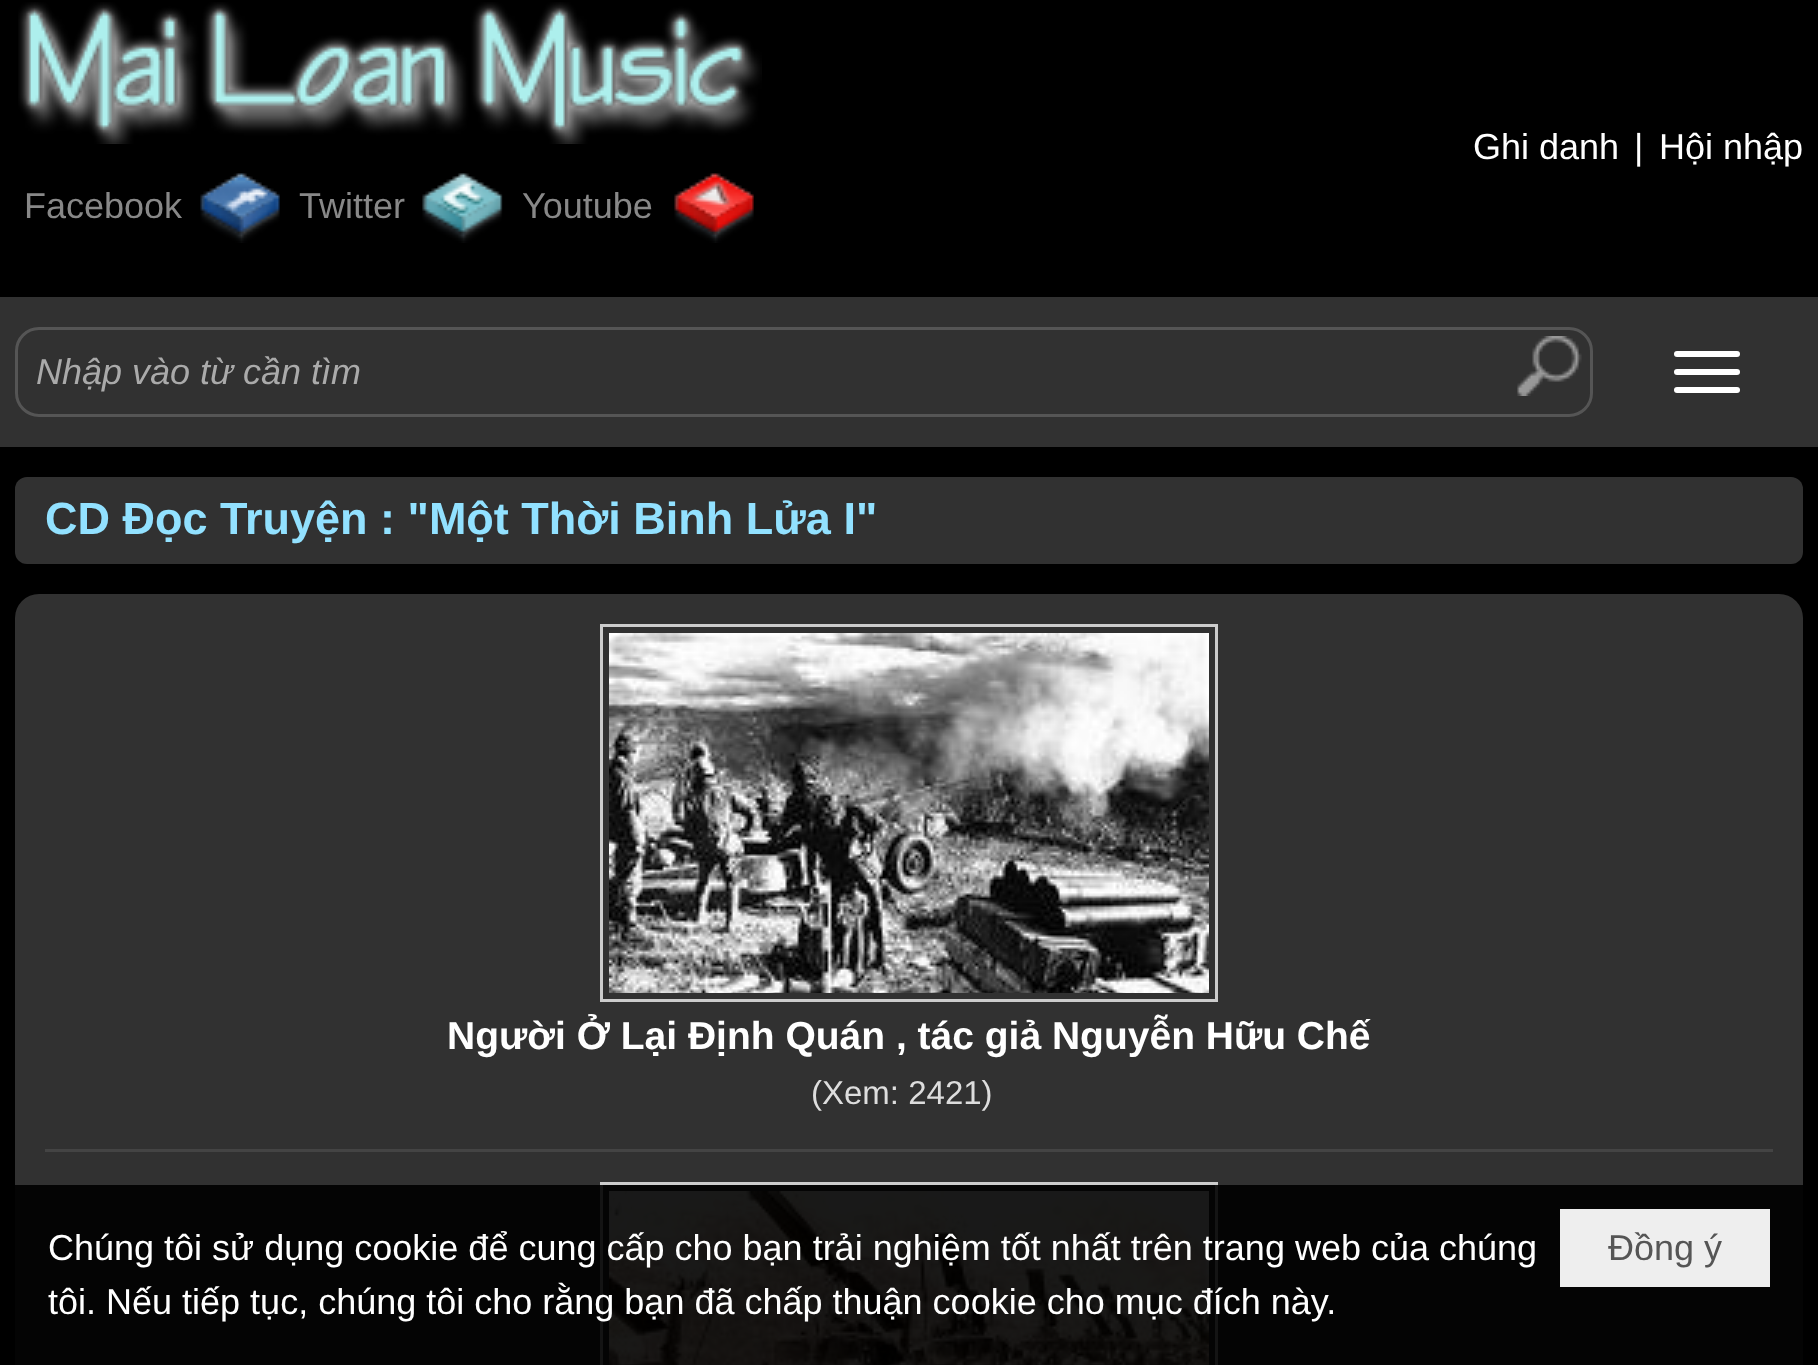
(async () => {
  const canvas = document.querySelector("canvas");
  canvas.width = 1818;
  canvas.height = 1365;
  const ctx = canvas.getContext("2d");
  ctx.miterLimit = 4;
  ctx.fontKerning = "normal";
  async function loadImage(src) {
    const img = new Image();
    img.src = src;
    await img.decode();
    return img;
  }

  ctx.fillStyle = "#000000";
  ctx.fillRect(0, 0, 1818, 1365);
  ctx.drawImage(await loadImage("img/1.png"), 18, 2, 744, 142);
  ctx.drawImage(await loadImage("img/2.png"), 200, 173, 80, 70);
  ctx.drawImage(await loadImage("img/3.png"), 422, 173, 81, 70);
  ctx.drawImage(await loadImage("img/4.png"), 674, 173, 80, 70);
  ctx.fillStyle = "#313131";
  ctx.fillRect(0, 297, 1818, 150);
  ctx.fillStyle = "#ffffff";
  ctx.beginPath();
  ctx.roundRect(1674, 351, 66, 6, 3);
  ctx.fill();
  ctx.beginPath();
  ctx.roundRect(1674, 369, 66, 6, 3);
  ctx.fill();
  ctx.beginPath();
  ctx.roundRect(1674, 387, 66, 6, 3);
  ctx.fill();
  ctx.beginPath();
  ctx.roundRect(16.5, 328.5, 1575, 87, 22.5);
  ctx.strokeStyle = "#555555";
  ctx.lineWidth = 3;
  ctx.stroke();
  ctx.drawImage(await loadImage("img/5.png"), 1517, 336, 65, 60);
  ctx.fillStyle = "#313131";
  ctx.beginPath();
  ctx.roundRect(15, 477, 1788, 87, 12);
  ctx.fill();
  ctx.beginPath();
  ctx.roundRect(15, 594, 1788, 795, 24);
  ctx.fill();
  ctx.fillStyle = "#444444";
  ctx.fillRect(45, 1149, 1728, 3);
  ctx.strokeStyle = "#cccccc";
  ctx.strokeRect(601.5, 625.5, 615, 375);
  ctx.drawImage(await loadImage("img/6.png"), 609, 633, 600, 360);
  ctx.strokeRect(601.5, 1183.5, 615, 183);
  ctx.drawImage(await loadImage("img/7.png"), 609, 1191, 600, 174);
  ctx.fillStyle = "rgba(0, 0, 0, 0.9)";
  ctx.fillRect(15, 1185, 1788, 180);
  ctx.fillStyle = "#eeeeee";
  ctx.fillRect(1560, 1209, 210, 78);
  ctx.font = "36px Liberation Sans";
  ctx.fillStyle = "#ffffff";
  for (const [text, x, y] of [
    ["Ghi danh", 1473, 159],
    ["|", 1634, 159],
    ["Hội nhập", 1659, 159],
  ]) {
    ctx.fillText(text, x, y);
  }
  ctx.fillStyle = "#888888";
  for (const [text, x, y] of [
    ["Facebook", 24, 218],
    ["Twitter", 299, 218],
    ["Youtube", 522, 218],
  ]) {
    ctx.fillText(text, x, y);
  }
  ctx.font = "italic 36px Liberation Sans";
  ctx.fillStyle = "#aaaaaa";
  ctx.fillText("Nhập vào từ cần tìm", 36, 384);
  ctx.font = "bold 45px Liberation Sans";
  ctx.fillStyle = "#92e1ff";
  ctx.fillText("CD Đọc Truyện : \"Một Thời Binh Lửa I\"", 45, 534);
  ctx.font = "bold 39px Liberation Sans";
  ctx.fillStyle = "#ffffff";
  ctx.fillText("Người Ở Lại Định Quán , tác giả Nguyễn Hữu Chế", 447, 1049);
  ctx.font = "33px Liberation Sans";
  ctx.fillStyle = "#dddddd";
  ctx.fillText("(Xem: 2421)", 811, 1104);
  ctx.font = "36px Liberation Sans";
  ctx.fillStyle = "#ffffff";
  ctx.fillText("Chúng tôi sử dụng cookie để cung cấp cho bạn trải nghiệm tốt nhất trên trang web của chúng", 48, 1260);
  ctx.fillText("tôi. Nếu tiếp tục, chúng tôi cho rằng bạn đã chấp thuận cookie cho mục đích này.", 48, 1314);
  ctx.fillStyle = "#555555";
  ctx.fillText("Đồng ý", 1608, 1260);
})();
